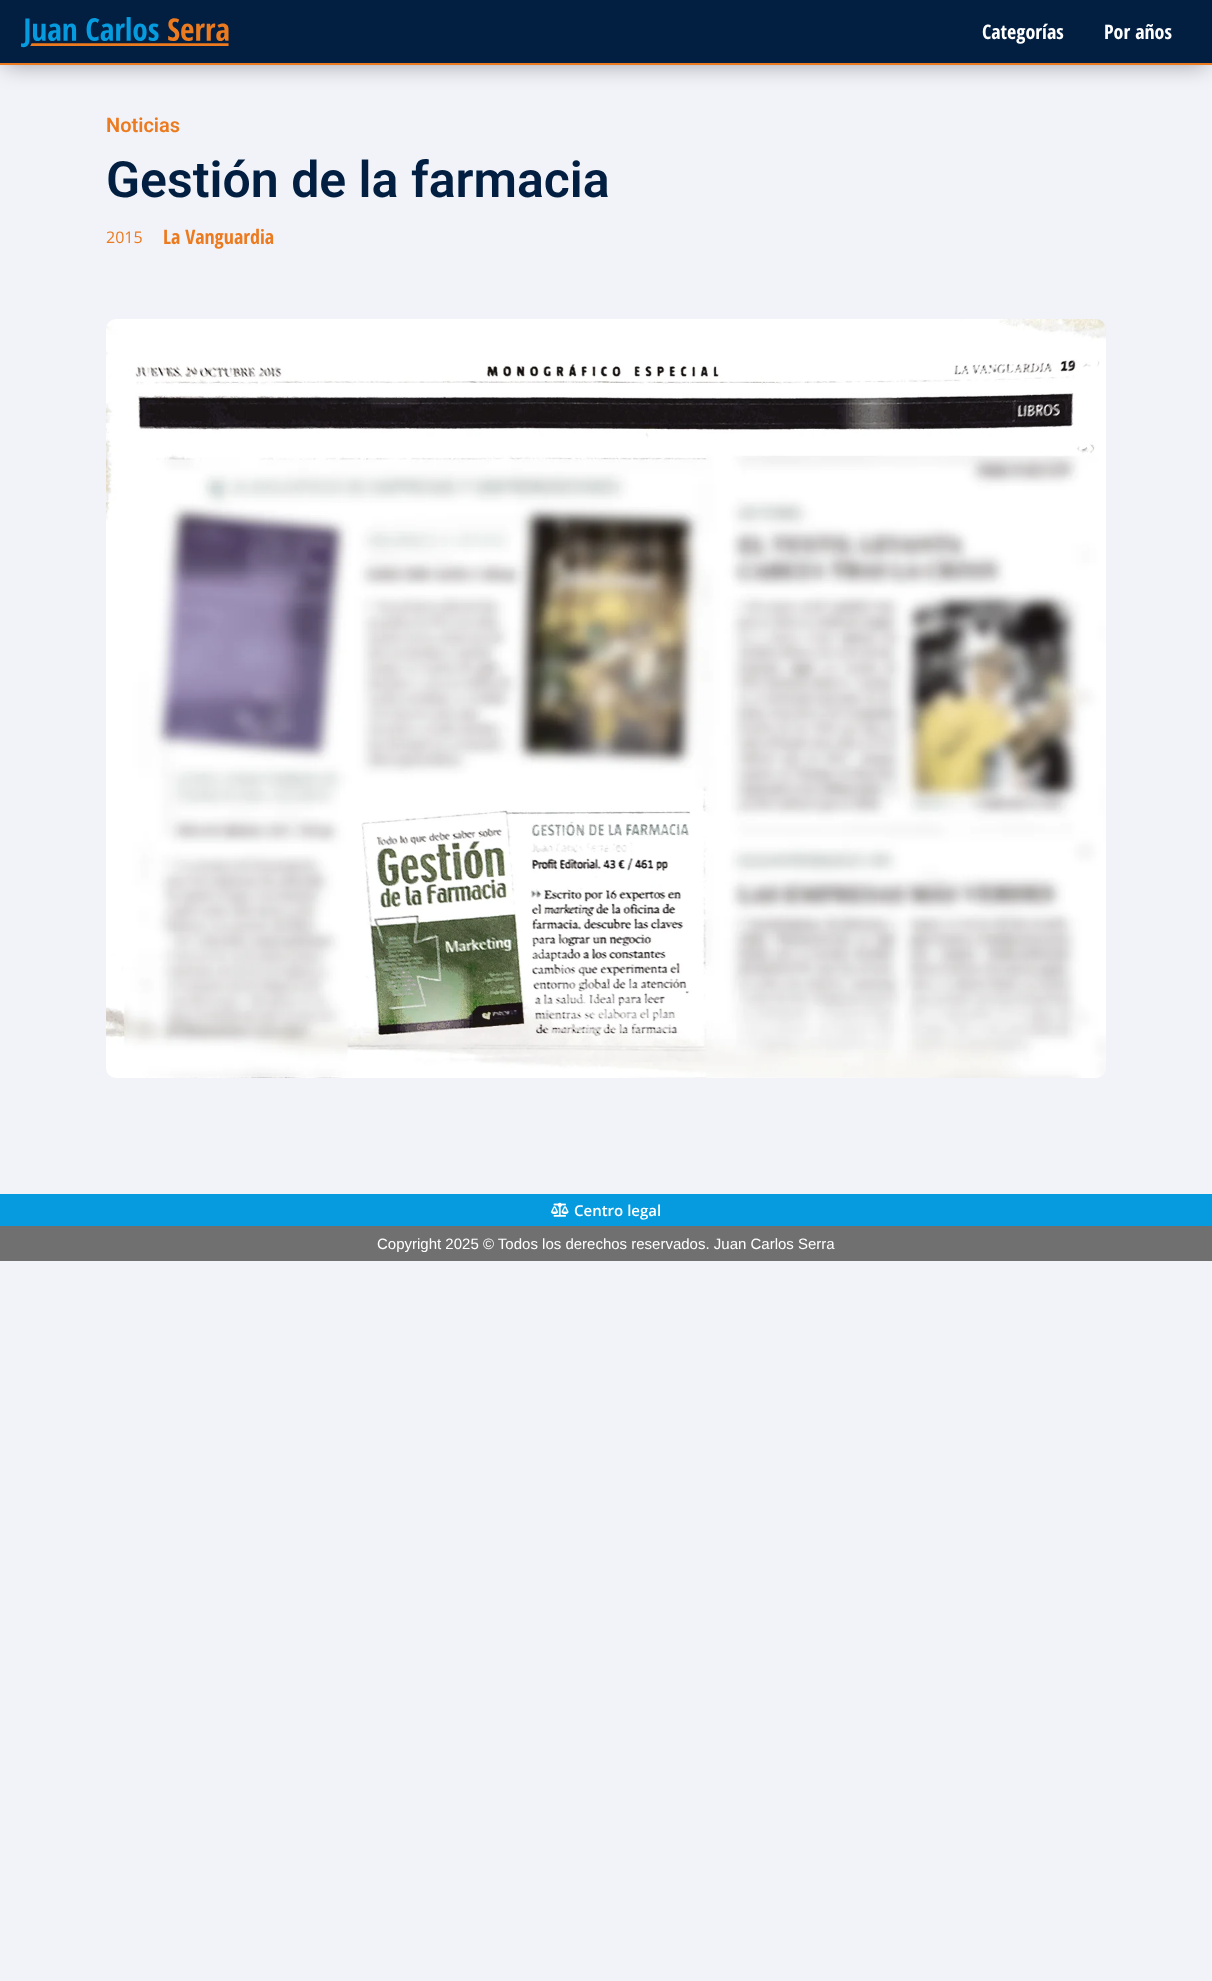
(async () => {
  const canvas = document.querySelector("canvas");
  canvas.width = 1212;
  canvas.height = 1981;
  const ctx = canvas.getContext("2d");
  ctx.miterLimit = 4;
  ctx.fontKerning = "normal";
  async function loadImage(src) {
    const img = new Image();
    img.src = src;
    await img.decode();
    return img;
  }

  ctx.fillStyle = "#f1f3f9";
  ctx.fillRect(0, 0, 1212, 1981);
  ctx.fillStyle = "rgba(0, 0, 0, 0.38)";
  ctx.filter = "blur(11.5px)";
  ctx.beginPath();
  ctx.rect(5, 9, 1202, 55);
  ctx.fill();
  ctx.filter = "none";
  ctx.fillStyle = "#021f42";
  ctx.fillRect(0, 0, 1212, 63);
  ctx.fillStyle = "#ec7a1e";
  ctx.fillRect(0, 63, 1212, 2);
  ctx.drawImage(await loadImage("img/1.png"), 21, 17, 208, 31);
  ctx.drawImage(await loadImage("img/2.png"), 106, 319, 1000, 759);
  ctx.fillStyle = "#059bde";
  ctx.fillRect(0, 1194, 1212, 32);
  ctx.drawImage(await loadImage("img/3.png"), 551, 1202, 18, 15);
  ctx.fillStyle = "#707070";
  ctx.fillRect(0, 1226, 1212, 35);
  ctx.font = "bold 20px Open Sans Condensed";
  ctx.fillStyle = "#ffffff";
  ctx.fillText("Categorías", 982, 39);
  ctx.fillText("Por años", 1104, 39);
  ctx.font = "600 20px Roboto";
  ctx.fillStyle = "#ec7a1e";
  ctx.fillText("Noticias", 106, 132);
  ctx.font = "600 50px Roboto";
  ctx.fillStyle = "#021f42";
  ctx.fillText("Gestión de la farmacia", 106, 197);
  ctx.font = "16px Open Sans";
  ctx.fillStyle = "#ec7a1e";
  ctx.fillText("2015", 106, 243);
  ctx.font = "bold 20px Open Sans Condensed";
  ctx.fillText("La Vanguardia", 163, 244);
  ctx.font = "600 15px Open Sans";
  ctx.fillStyle = "#ffffff";
  ctx.fillText("Centro legal", 574, 1216);
  ctx.font = "15px Liberation Sans";
  ctx.fillText("Copyright 2025 © Todos los derechos reservados. Juan Carlos Serra", 377, 1249);
})();
